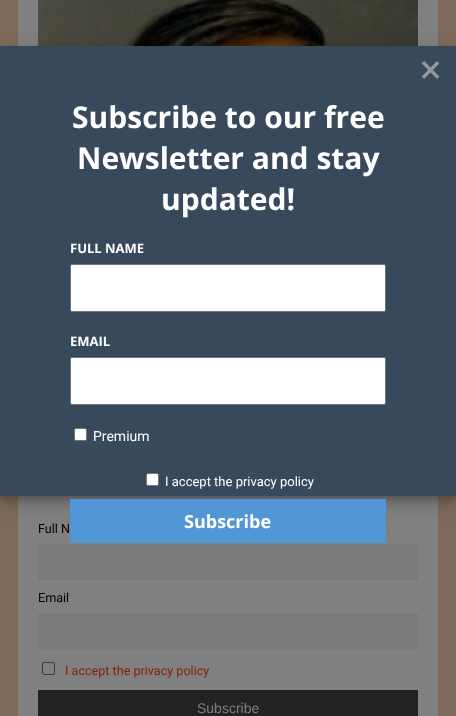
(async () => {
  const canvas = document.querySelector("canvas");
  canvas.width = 456;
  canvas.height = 716;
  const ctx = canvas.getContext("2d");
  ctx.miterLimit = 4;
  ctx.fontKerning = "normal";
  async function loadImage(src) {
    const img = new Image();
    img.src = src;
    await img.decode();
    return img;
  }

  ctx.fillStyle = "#7e6a5a";
  ctx.fillRect(0, 0, 456, 716);
  ctx.fillStyle = "#808080";
  ctx.fillRect(18, 0, 420, 46);
  ctx.drawImage(await loadImage("img/1.png"), 38, 0, 380, 46);
  ctx.fillRect(18, 496, 420, 220);
  ctx.fillStyle = "rgba(0, 0, 0, 0.17)";
  ctx.filter = "blur(10px)";
  ctx.beginPath();
  ctx.rect(0, 53, 456, 450);
  ctx.fill();
  ctx.filter = "none";
  ctx.fillStyle = "rgba(0, 0, 0, 0.2)";
  ctx.filter = "blur(4px)";
  ctx.beginPath();
  ctx.rect(0, 51, 456, 450);
  ctx.fill();
  ctx.filter = "none";
  ctx.fillStyle = "#38495c";
  ctx.fillRect(0, 46, 456, 450);
  ctx.fillStyle = "#ffffff";
  ctx.beginPath();
  ctx.roundRect(70.5, 264.5, 315, 47, 1.5);
  ctx.fill();
  ctx.strokeStyle = "#767676";
  ctx.stroke();
  ctx.beginPath();
  ctx.roundRect(70.5, 357.5, 315, 47, 1.5);
  ctx.fill();
  ctx.stroke();
  ctx.beginPath();
  ctx.roundRect(74.5, 428.5, 12, 12, 1.5);
  ctx.fill();
  ctx.stroke();
  ctx.beginPath();
  ctx.roundRect(146.5, 473.5, 12, 12, 1.5);
  ctx.fill();
  ctx.stroke();
  for (const [x, y, w, h, color] of [
    [70, 499, 316, 44, "#5197d5"],
    [38, 544, 380, 36, "#7a7a7a"],
    [38, 613, 380, 36, "#7a7a7a"],
  ]) {
    ctx.fillStyle = color;
    ctx.fillRect(x, y, w, h);
  }
  ctx.beginPath();
  ctx.roundRect(42.5, 662.5, 12, 12, 1.5);
  ctx.strokeStyle = "#3b3b3b";
  ctx.stroke();
  ctx.fillStyle = "#222222";
  ctx.fillRect(38, 690, 380, 26);
  ctx.font = "40px Roboto";
  ctx.fillStyle = "#999999";
  ctx.fillText("×", 420, 83);
  ctx.font = "bold 30px Open Sans";
  ctx.fillStyle = "#ffffff";
  for (const [text, x, y] of [
    ["Subscribe to our free", 72, 128],
    ["Newsletter and stay", 77, 169],
    ["updated!", 161, 210],
  ]) {
    ctx.fillText(text, x, y);
  }
  ctx.font = "bold 13px Open Sans";
  ctx.fillText("FULL NAME", 70, 253);
  ctx.fillText("EMAIL", 70, 346);
  ctx.font = "14px Roboto";
  ctx.fillText("Premium", 93, 441);
  ctx.font = "13px Roboto";
  ctx.fillText("I accept the privacy policy", 165, 486);
  ctx.font = "bold 18px Open Sans";
  ctx.fillText("Subscribe", 184, 528);
  ctx.font = "12.6px Roboto";
  ctx.fillStyle = "#000000";
  ctx.fillText("Full N", 38, 533);
  ctx.fillText("Email", 38, 602);
  ctx.fillStyle = "#801f00";
  ctx.fillText("I accept the privacy policy", 65, 675);
  ctx.font = "14px Liberation Sans";
  ctx.fillStyle = "#808080";
  ctx.fillText("Subscribe", 197, 713);
})();
